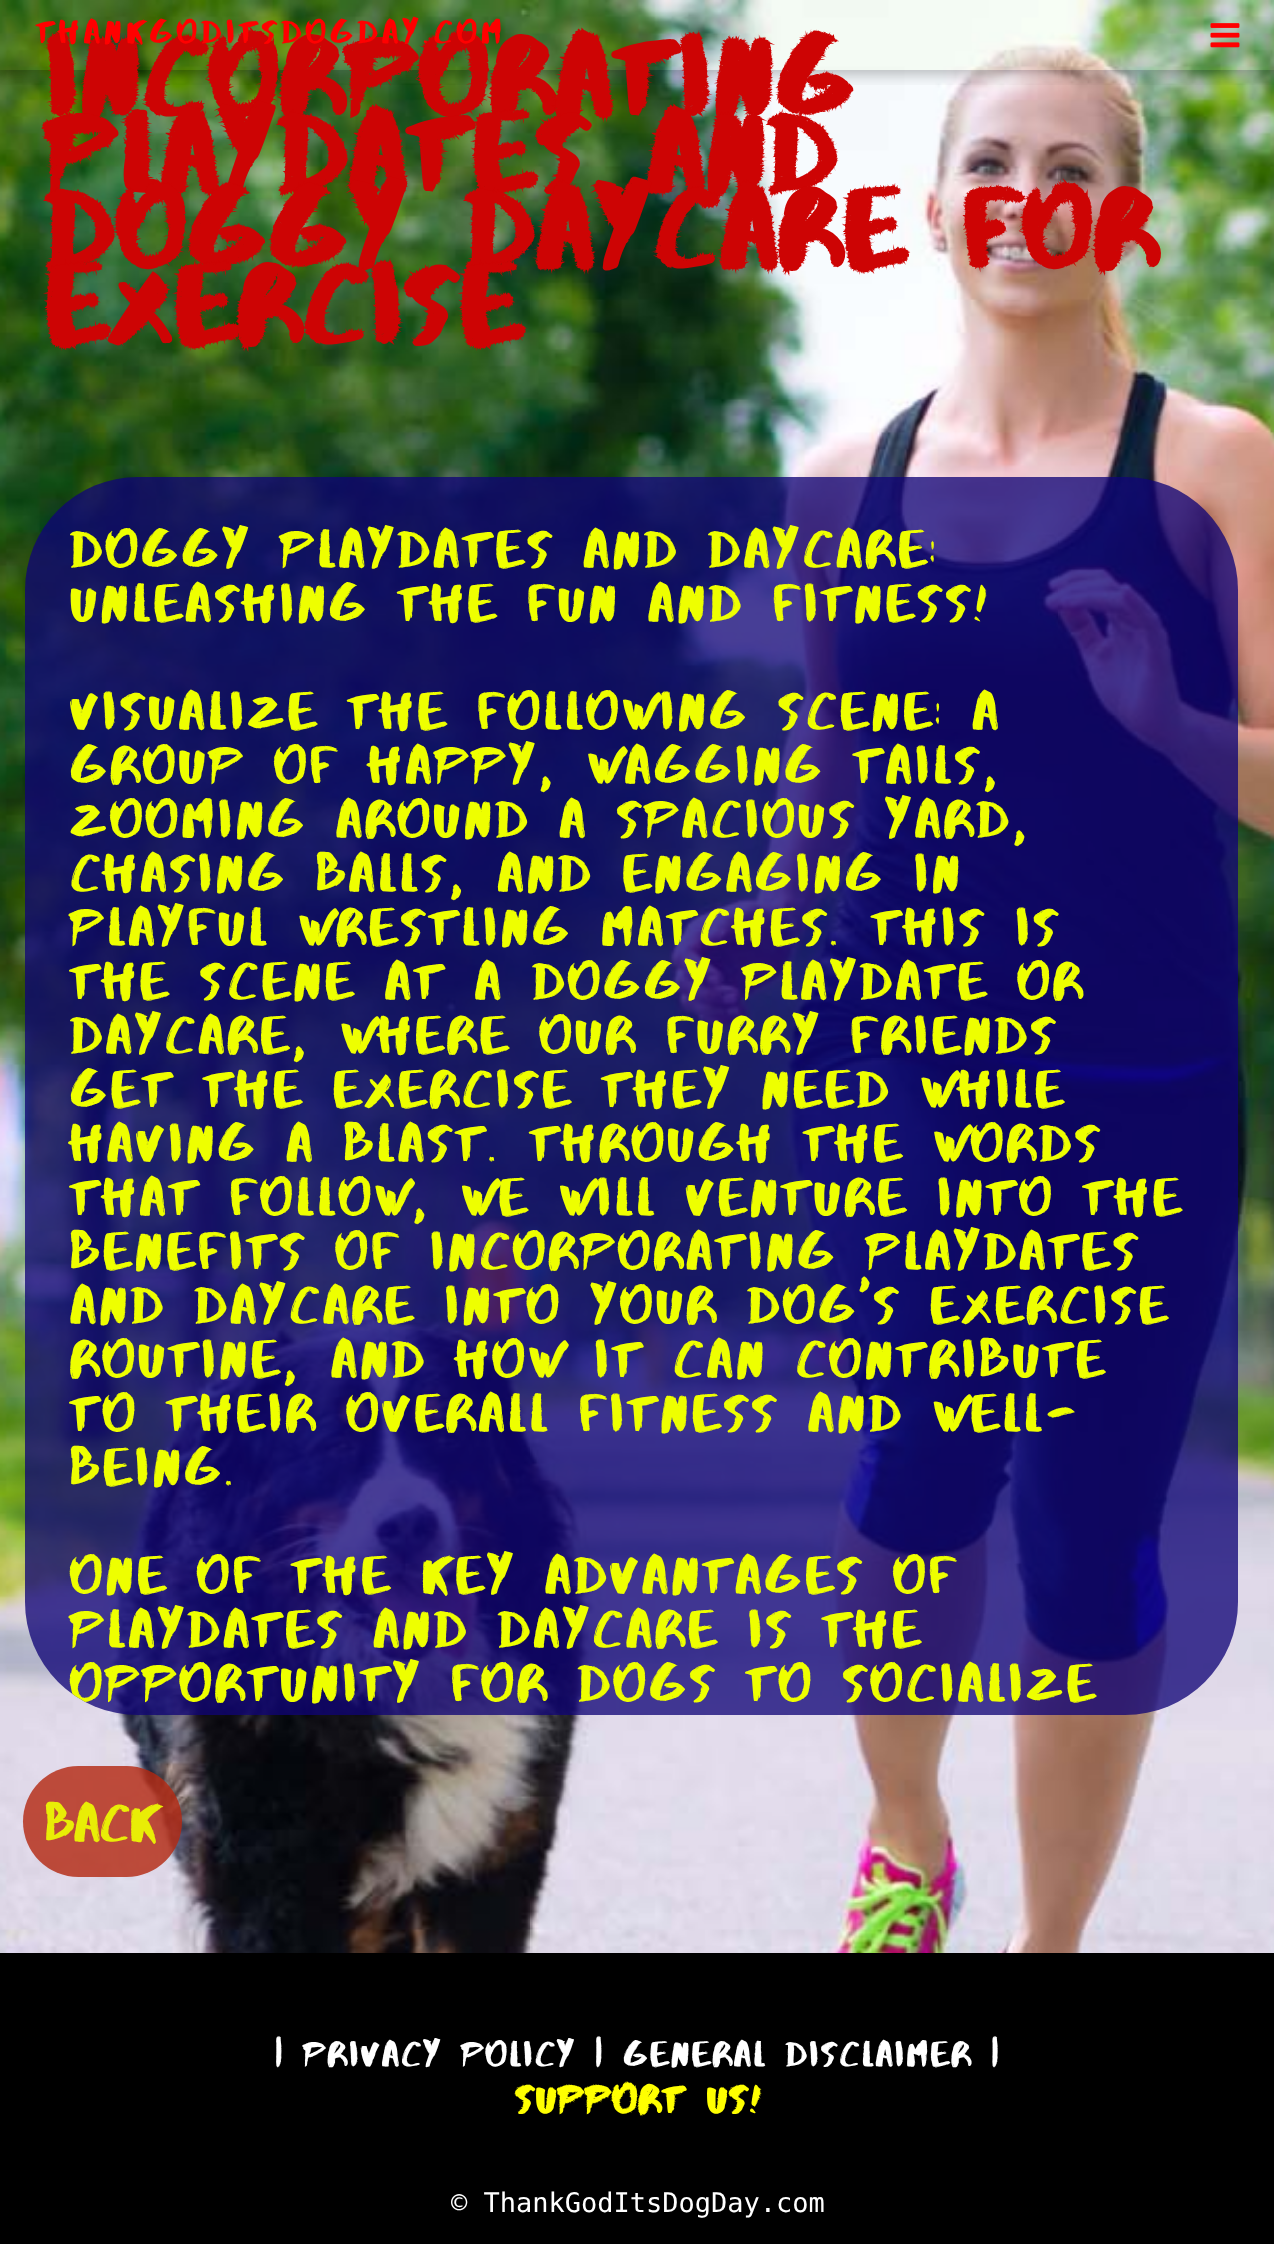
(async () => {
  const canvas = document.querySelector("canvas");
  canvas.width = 1274;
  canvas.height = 2244;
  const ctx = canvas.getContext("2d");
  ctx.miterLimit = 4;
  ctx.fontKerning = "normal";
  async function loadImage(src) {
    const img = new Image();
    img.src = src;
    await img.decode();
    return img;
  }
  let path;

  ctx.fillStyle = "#ffffff";
  ctx.fillRect(0, 0, 1274, 2244);
  ctx.drawImage(await loadImage("img/1.png"), 0, 0, 1274, 1953);
  ctx.save();
  ctx.beginPath();
  ctx.rect(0, 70, 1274, 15);
  ctx.clip();
  ctx.fillStyle = "rgba(0, 0, 0, 0.12)";
  ctx.filter = "blur(11px)";
  ctx.beginPath();
  ctx.rect(0, 5, 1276, 69);
  ctx.fill();
  ctx.filter = "none";
  ctx.restore();
  ctx.save();
  path = new Path2D("M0 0H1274V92H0ZM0 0H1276V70H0Z");
  ctx.clip(path, "evenodd");
  ctx.fillStyle = "rgba(0, 0, 0, 0.16)";
  ctx.filter = "blur(5.5px)";
  ctx.beginPath();
  ctx.rect(0, 5, 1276, 69);
  ctx.fill();
  ctx.filter = "none";
  ctx.restore();
  ctx.fillStyle = "rgba(189, 255, 9, 0.04)";
  ctx.fillRect(0, 0, 1274, 70);
  ctx.drawImage(await loadImage("img/2.png"), 1210, 23, 30, 25);
  ctx.fillStyle = "rgba(16, 4, 119, 0.77)";
  ctx.beginPath();
  ctx.roundRect(25, 477, 1213, 1238, 113);
  ctx.fill();
  ctx.fillStyle = "rgba(180, 41, 17, 0.81)";
  ctx.beginPath();
  ctx.roundRect(23, 1766, 159, 111, 55.5);
  ctx.fill();
  ctx.fillStyle = "#000000";
  ctx.fillRect(0, 1953, 1274, 291);
  ctx.letterSpacing = "5.1px";
  ctx.font = "bold 112.25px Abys";
  ctx.fillStyle = "#cd0404";
  ctx.fillText("Incorporating", 45, 115);
  ctx.letterSpacing = "4.5px";
  ctx.font = "33.75px Abys";
  ctx.fillStyle = "#ff0000";
  ctx.fillText("ThankGodItsDogDay.com", 36, 43);
  ctx.letterSpacing = "5.1px";
  ctx.font = "bold 112.25px Abys";
  ctx.fillStyle = "#cd0404";
  for (const [text, x, y] of [
    ["Playdates and", 45, 191],
    ["Doggy Daycare for", 45, 267],
    ["Exercise", 45, 343],
  ]) {
    ctx.fillText(text, x, y);
  }
  ctx.letterSpacing = "3.8px";
  ctx.font = "54px Abys";
  ctx.fillStyle = "#eeff00";
  for (const [text, x, y] of [
    ["Doggy Playdates and Daycare:", 70, 567],
    ["Unleashing the Fun and Fitness!", 70, 621],
    ["Visualize the following scene: a", 70, 729],
    ["group of happy, wagging tails,", 70, 783],
    ["zooming around a spacious yard,", 70, 837],
    ["chasing balls, and engaging in", 70, 891],
    ["playful wrestling matches. This is", 70, 945],
    ["the scene at a doggy playdate or", 70, 999],
    ["daycare, where our furry friends", 70, 1053],
    ["get the exercise they need while", 70, 1107],
    ["having a blast. Through the words", 70, 1161],
    ["that follow, we will venture into the", 70, 1215],
    ["benefits of incorporating playdates", 70, 1269],
    ["and daycare into your dog's exercise", 70, 1323],
    ["routine, and how it can contribute", 70, 1377],
    ["to their overall fitness and well-", 70, 1431],
    ["being.", 70, 1485],
    ["One of the key advantages of", 70, 1593],
    ["playdates and daycare is the", 70, 1647],
  ]) {
    ctx.fillText(text, x, y);
  }
  ctx.save();
  ctx.beginPath();
  ctx.roundRect(25, 477, 1213, 1238, 113);
  ctx.clip();
  ctx.fillText("opportunity for dogs to socialize", 70, 1701);
  ctx.restore();
  ctx.letterSpacing = "0px";
  ctx.fillStyle = "#e9ed06";
  ctx.fillText("BACK", 45, 1841);
  ctx.letterSpacing = "2.25px";
  ctx.font = "36px Abys";
  ctx.fillStyle = "#ffffff";
  ctx.fillText("| Privacy Policy | General Disclaimer |", 275, 2066);
  ctx.font = "bold 40.5px Abys";
  ctx.fillStyle = "#ffff00";
  ctx.fillText("Support Us!", 515, 2113);
  ctx.letterSpacing = "0px";
  ctx.font = "27px DejaVu Sans Mono";
  ctx.fillStyle = "#ffffff";
  ctx.fillText("© ThankGodItsDogDay.com", 451, 2212);
})();
